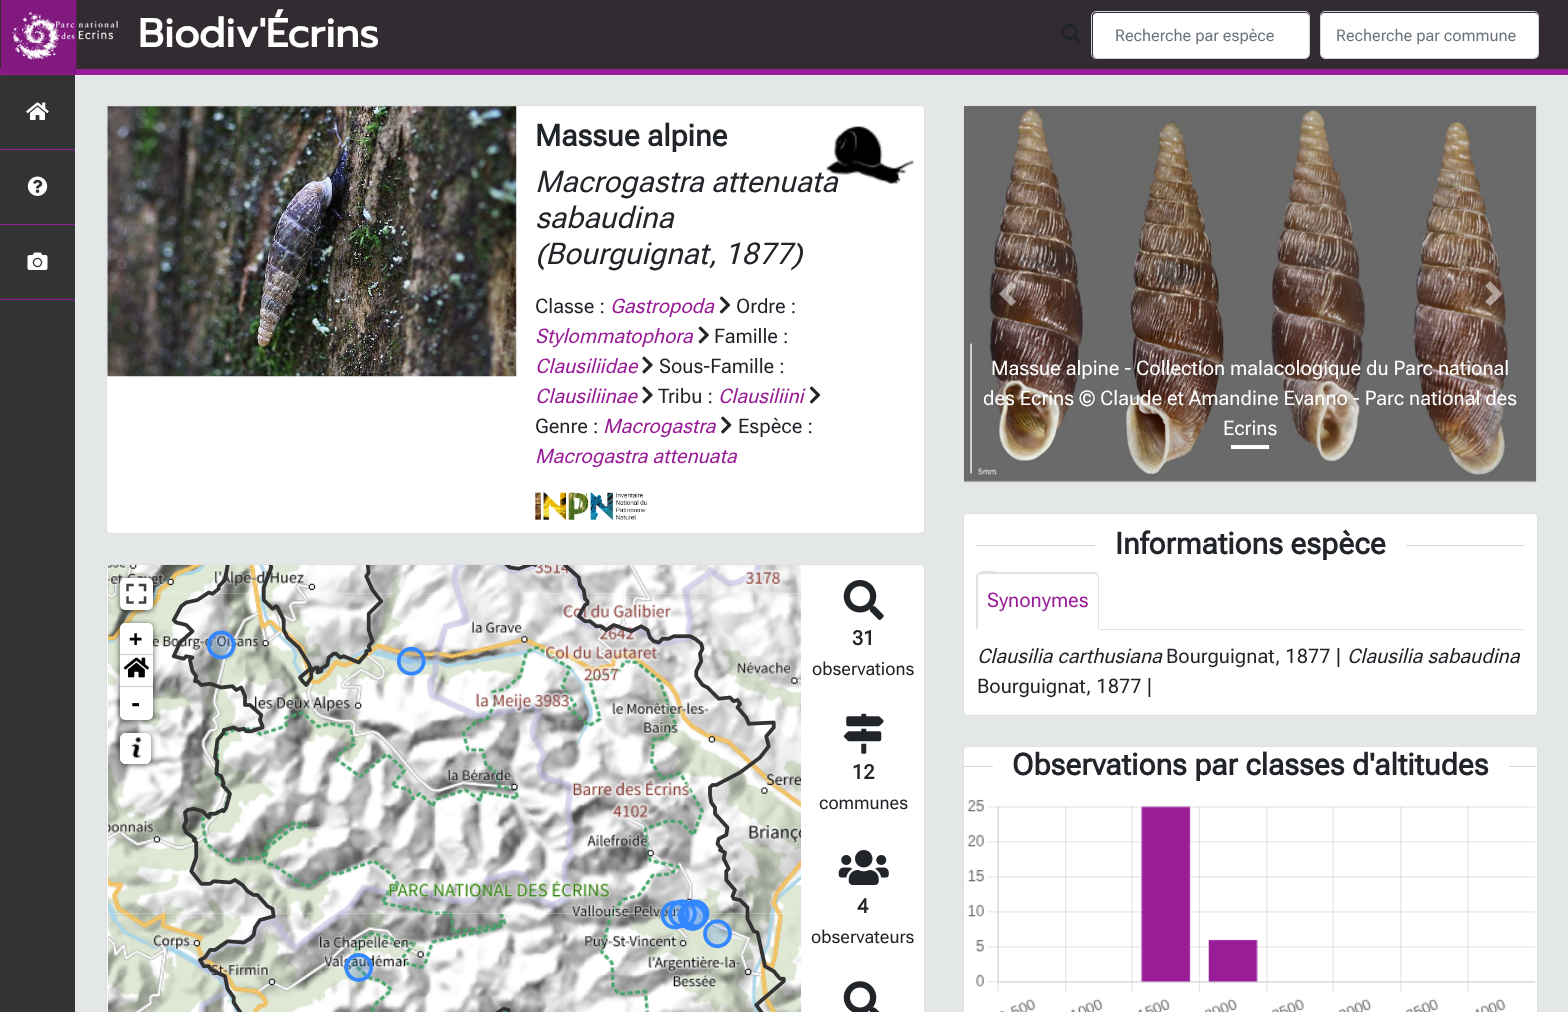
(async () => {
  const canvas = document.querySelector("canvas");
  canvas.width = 1568;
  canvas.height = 1012;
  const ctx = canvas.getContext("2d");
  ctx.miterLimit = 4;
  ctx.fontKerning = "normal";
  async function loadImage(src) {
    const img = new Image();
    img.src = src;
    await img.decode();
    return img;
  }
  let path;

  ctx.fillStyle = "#e3e7e8";
  ctx.fillRect(0, 0, 1568, 1012);
  ctx.fillStyle = "#322b31";
  ctx.fillRect(0, 0, 1568, 69);
  ctx.fillStyle = "#981d97";
  ctx.fillRect(0, 69, 1568, 6);
  ctx.drawImage(await loadImage("img/1.png"), 1, 0, 118, 74);
  ctx.drawImage(await loadImage("img/2.png"), 1061, 24, 20, 20);
  ctx.fillStyle = "#ffffff";
  ctx.beginPath();
  ctx.roundRect(1093, 13, 216, 45, 4);
  ctx.fill();
  ctx.beginPath();
  ctx.roundRect(1091.5, 11.5, 218, 47, 4.5);
  ctx.strokeStyle = "#ced4da";
  ctx.stroke();
  ctx.beginPath();
  ctx.roundRect(1321, 13, 217, 45, 4);
  ctx.fill();
  ctx.beginPath();
  ctx.roundRect(1320.5, 11.5, 218, 47, 4.5);
  ctx.stroke();
  ctx.fillStyle = "#333333";
  ctx.fillRect(0, 75, 75, 937);
  ctx.fillStyle = "#981d97";
  ctx.fillRect(0, 149, 75, 1);
  ctx.drawImage(await loadImage("img/3.png"), 26, 102, 23, 18);
  ctx.fillRect(0, 224, 75, 1);
  ctx.drawImage(await loadImage("img/4.png"), 27, 176, 21, 20);
  ctx.fillRect(0, 299, 75, 1);
  ctx.drawImage(await loadImage("img/5.png"), 27, 252, 21, 18);
  ctx.fillStyle = "#ffffff";
  ctx.beginPath();
  ctx.roundRect(106, 105, 819, 429, 5);
  ctx.fill();
  ctx.beginPath();
  ctx.roundRect(106.5, 105.5, 818, 428, 4.5);
  ctx.strokeStyle = "rgba(0, 0, 0, 0.12)";
  ctx.stroke();
  ctx.drawImage(await loadImage("img/6.png"), 107, 106, 410, 271);
  ctx.drawImage(await loadImage("img/7.png"), 719, 296, 12, 18);
  ctx.drawImage(await loadImage("img/8.png"), 698, 326, 11, 18);
  ctx.drawImage(await loadImage("img/9.png"), 642, 356, 11, 18);
  ctx.drawImage(await loadImage("img/9.png"), 642, 386, 11, 18);
  ctx.drawImage(await loadImage("img/7.png"), 809, 386, 12, 18);
  ctx.drawImage(await loadImage("img/10.png"), 721, 416, 11, 18);
  ctx.drawImage(await loadImage("img/11.png"), 535, 492, 112, 28);
  ctx.beginPath();
  ctx.roundRect(106, 564, 819, 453, 5);
  ctx.fill();
  ctx.beginPath();
  ctx.roundRect(106.5, 564.5, 818, 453, 4.5);
  ctx.stroke();
  ctx.drawImage(await loadImage("img/13.png"), 108, 565, 117, 29);
  ctx.drawImage(await loadImage("img/17.png"), 225, 593, 320, 321);
  ctx.drawImage(await loadImage("img/14.png"), 225, 565, 320, 29);
  ctx.drawImage(await loadImage("img/15.png"), 545, 565, 256, 29);
  ctx.drawImage(await loadImage("img/16.png"), 108, 594, 117, 320);
  ctx.drawImage(await loadImage("img/18.png"), 545, 594, 256, 320);
  ctx.drawImage(await loadImage("img/19.png"), 108, 914, 117, 98);
  ctx.drawImage(await loadImage("img/20.png"), 225, 914, 320, 98);
  ctx.drawImage(await loadImage("img/21.png"), 545, 914, 256, 98);
  ctx.drawImage(await loadImage("img/22.png"), 171, 565, 615, 447);
  ctx.fillStyle = "rgba(0, 0, 0, 0.65)";
  ctx.filter = "blur(3px)";
  ctx.beginPath();
  ctx.roundRect(120, 579, 33, 32, 5);
  ctx.fill();
  ctx.filter = "none";
  ctx.fillStyle = "#ffffff";
  ctx.beginPath();
  ctx.roundRect(120, 578, 33, 32, 5);
  ctx.fill();
  ctx.drawImage(await loadImage("img/23.png"), 126, 583, 21, 21);
  ctx.fillStyle = "rgba(0, 0, 0, 0.65)";
  ctx.filter = "blur(3px)";
  ctx.beginPath();
  ctx.roundRect(120, 624, 33, 97, 5);
  ctx.fill();
  ctx.filter = "none";
  ctx.fillStyle = "#ffffff";
  ctx.beginPath();
  ctx.roundRect(120, 623, 33, 32, [5, 5, 0, 0]);
  ctx.fill();
  for (const [x, y, w, h, color] of [
    [120, 654, 33, 1, "#cccccc"],
    [120, 655, 33, 33, "#ffffff"],
    [120, 686, 33, 1, "#cccccc"],
  ]) {
    ctx.fillStyle = color;
    ctx.fillRect(x, y, w, h);
  }
  ctx.drawImage(await loadImage("img/24.png"), 123, 657, 26, 21);
  ctx.fillStyle = "#ffffff";
  ctx.beginPath();
  ctx.roundRect(120, 688, 33, 32, [0, 0, 5, 5]);
  ctx.fill();
  ctx.fillStyle = "rgba(0, 0, 0, 0.65)";
  ctx.filter = "blur(3px)";
  ctx.beginPath();
  ctx.roundRect(120, 734, 31, 31, 5);
  ctx.fill();
  ctx.filter = "none";
  ctx.fillStyle = "#ffffff";
  ctx.beginPath();
  ctx.roundRect(120.5, 733.5, 30, 30, 4.5);
  ctx.fill();
  ctx.strokeStyle = "#ffffff";
  ctx.stroke();
  ctx.drawImage(await loadImage("img/25.png"), 131, 737, 11, 21);
  ctx.drawImage(await loadImage("img/26.png"), 843, 580, 41, 40);
  ctx.drawImage(await loadImage("img/27.png"), 843, 713, 41, 41);
  ctx.drawImage(await loadImage("img/28.png"), 838, 850, 51, 35);
  ctx.drawImage(await loadImage("img/29.png"), 843, 981, 37, 31);
  ctx.beginPath();
  ctx.roundRect(963, 105, 575, 378, 5);
  ctx.fill();
  ctx.beginPath();
  ctx.roundRect(963.5, 105.5, 574, 377, 4.5);
  ctx.strokeStyle = "rgba(0, 0, 0, 0.12)";
  ctx.stroke();
  ctx.drawImage(await loadImage("img/30.png"), 964, 106, 573, 376);
  ctx.fillStyle = "rgba(255, 255, 255, 0.5)";
  path = new Path2D("M1011.5 281L999 294L1011.5 306L1016 301.5L1008.5 294L1016 286Z");
  ctx.fill(path);
  path = new Path2D("M1490 281L1485 286L1493 294L1485 301.5L1490 306L1502.5 294Z");
  ctx.fill(path);
  ctx.fillStyle = "#ffffff";
  ctx.fillRect(1231, 445, 38, 4);
  ctx.beginPath();
  ctx.roundRect(963, 513, 575, 203, 5);
  ctx.fill();
  ctx.beginPath();
  ctx.roundRect(963.5, 513.5, 574, 202, 4.5);
  ctx.stroke();
  for (const [x, y, w, h, color] of [
    [976, 545, 119, 1, "#d7d7d7"],
    [1406, 545, 118, 1, "#d7d7d7"],
    [1099, 629, 425, 1, "#dee2e6"],
  ]) {
    ctx.fillStyle = color;
    ctx.fillRect(x, y, w, h);
  }
  path = new Path2D("M981 574L979 575L977 574C982 568 998 572 998 572H1096L1098 574L1097 575L1094 574Z");
  ctx.fill(path);
  path = new Path2D("M1099 576V630L1098 629V577L1097 575L1098 574Z");
  ctx.fill(path);
  ctx.fillStyle = "#ffffff";
  path = new Path2D("M1099 630L1098 629H978V628L976 630Z");
  ctx.fill(path);
  ctx.fillStyle = "#dee2e6";
  path = new Path2D("M976 630V576L977 574L979 575L978 578V628Z");
  ctx.fill(path);
  ctx.fillStyle = "#ffffff";
  ctx.beginPath();
  ctx.roundRect(963, 746, 575, 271, 5);
  ctx.fill();
  ctx.beginPath();
  ctx.roundRect(963.5, 746.5, 574, 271, 4.5);
  ctx.stroke();
  ctx.fillStyle = "#d7d7d7";
  ctx.fillRect(964, 766, 29, 1);
  ctx.fillRect(1509, 766, 27, 1);
  ctx.drawImage(await loadImage("img/31.png"), 967, 799, 568, 213);
  ctx.font = "bold 40px Prompt";
  ctx.fillStyle = "#ffffff";
  ctx.fillText("Biodiv'Écrins", 138, 47);
  ctx.font = "16.25px Roboto Flex";
  ctx.fillStyle = "#6c757d";
  ctx.fillText("Recherche par espèce", 1115, 41);
  ctx.fillText("Recherche par commune", 1336, 41);
  ctx.font = "bold 30px Roboto Flex";
  ctx.fillStyle = "#212529";
  ctx.fillText("Massue alpine", 535, 146);
  ctx.font = "italic 30px Roboto Flex";
  for (const [text, x, y] of [
    ["Macrogastra attenuata", 535, 192],
    ["sabaudina", 535, 228],
    ["(Bourguignat, 1877)", 535, 264],
  ]) {
    ctx.fillText(text, x, y);
  }
  ctx.font = "20px Roboto Flex";
  ctx.fillText("Classe :", 535, 313);
  ctx.font = "italic 20px Roboto Flex";
  ctx.fillStyle = "#981d97";
  ctx.fillText("Gastropoda", 610, 313);
  ctx.font = "20px Roboto Flex";
  ctx.fillStyle = "#212529";
  ctx.fillText("Ordre :", 736, 313);
  ctx.font = "italic 20px Roboto Flex";
  ctx.fillStyle = "#981d97";
  ctx.fillText("Stylommatophora", 535, 343);
  ctx.font = "20px Roboto Flex";
  ctx.fillStyle = "#212529";
  ctx.fillText("Famille :", 714, 343);
  ctx.font = "italic 20px Roboto Flex";
  ctx.fillStyle = "#981d97";
  ctx.fillText("Clausiliidae", 535, 373);
  ctx.font = "20px Roboto Flex";
  ctx.fillStyle = "#212529";
  ctx.fillText("Sous-Famille :", 659, 373);
  ctx.font = "italic 20px Roboto Flex";
  ctx.fillStyle = "#981d97";
  ctx.fillText("Clausiliinae", 535, 403);
  ctx.font = "20px Roboto Flex";
  ctx.fillStyle = "#212529";
  ctx.fillText("Tribu :", 658, 403);
  ctx.font = "italic 20px Roboto Flex";
  ctx.fillStyle = "#981d97";
  ctx.fillText("Clausiliini", 718, 403);
  ctx.font = "20px Roboto Flex";
  ctx.fillStyle = "#212529";
  ctx.fillText("Genre :", 535, 433);
  ctx.font = "italic 20px Roboto Flex";
  ctx.fillStyle = "#981d97";
  ctx.fillText("Macrogastra", 603, 433);
  ctx.font = "20px Roboto Flex";
  ctx.fillStyle = "#212529";
  ctx.fillText("Espèce :", 738, 433);
  ctx.font = "italic 20px Roboto Flex";
  ctx.fillStyle = "#981d97";
  ctx.fillText("Macrogastra attenuata", 535, 463);
  ctx.drawImage(await loadImage("img/12.png"), 826, 126, 88, 58);
  ctx.font = "bold 22px DejaVu Sans Mono";
  ctx.fillStyle = "#000000";
  ctx.fillText("+", 129, 646);
  ctx.fillText("-", 129, 711);
  ctx.font = "bold 20px Roboto Flex";
  ctx.fillStyle = "#212529";
  ctx.fillText("31", 852, 645);
  ctx.font = "18px Roboto Flex";
  ctx.fillText("observations", 812, 675);
  ctx.font = "bold 20px Roboto Flex";
  ctx.fillText("12", 852, 779);
  ctx.font = "18px Roboto Flex";
  ctx.fillText("communes", 819, 809);
  ctx.font = "bold 20px Roboto Flex";
  ctx.fillText("4", 857, 913);
  ctx.font = "18px Roboto Flex";
  ctx.fillText("observateurs", 811, 943);
  ctx.font = "20px Roboto Flex";
  ctx.fillStyle = "#ffffff";
  for (const [text, x, y] of [
    ["Massue alpine - Collection malacologique du Parc national", 991, 375],
    ["des Ecrins © Claude et Amandine Evanno - Parc national des", 983, 405],
    ["Ecrins", 1223, 435],
  ]) {
    ctx.fillText(text, x, y);
  }
  ctx.font = "bold 30px Roboto Flex";
  ctx.fillStyle = "#212529";
  ctx.fillText("Informations espèce", 1115, 554);
  ctx.font = "20px Roboto Flex";
  ctx.fillStyle = "#981d97";
  ctx.fillText("Synonymes", 987, 607);
  ctx.font = "italic 20px Roboto Flex";
  ctx.fillStyle = "#212529";
  ctx.fillText("Clausilia carthusiana", 977, 663);
  ctx.font = "20px Roboto Flex";
  ctx.fillText("Bourguignat, 1877 |", 1166, 663);
  ctx.font = "italic 20px Roboto Flex";
  ctx.fillText("Clausilia sabaudina", 1347, 663);
  ctx.font = "20px Roboto Flex";
  ctx.fillText("Bourguignat, 1877 |", 977, 693);
  ctx.font = "bold 30px Roboto Flex";
  ctx.fillText("Observations par classes d'altitudes", 1012, 775);
})();
